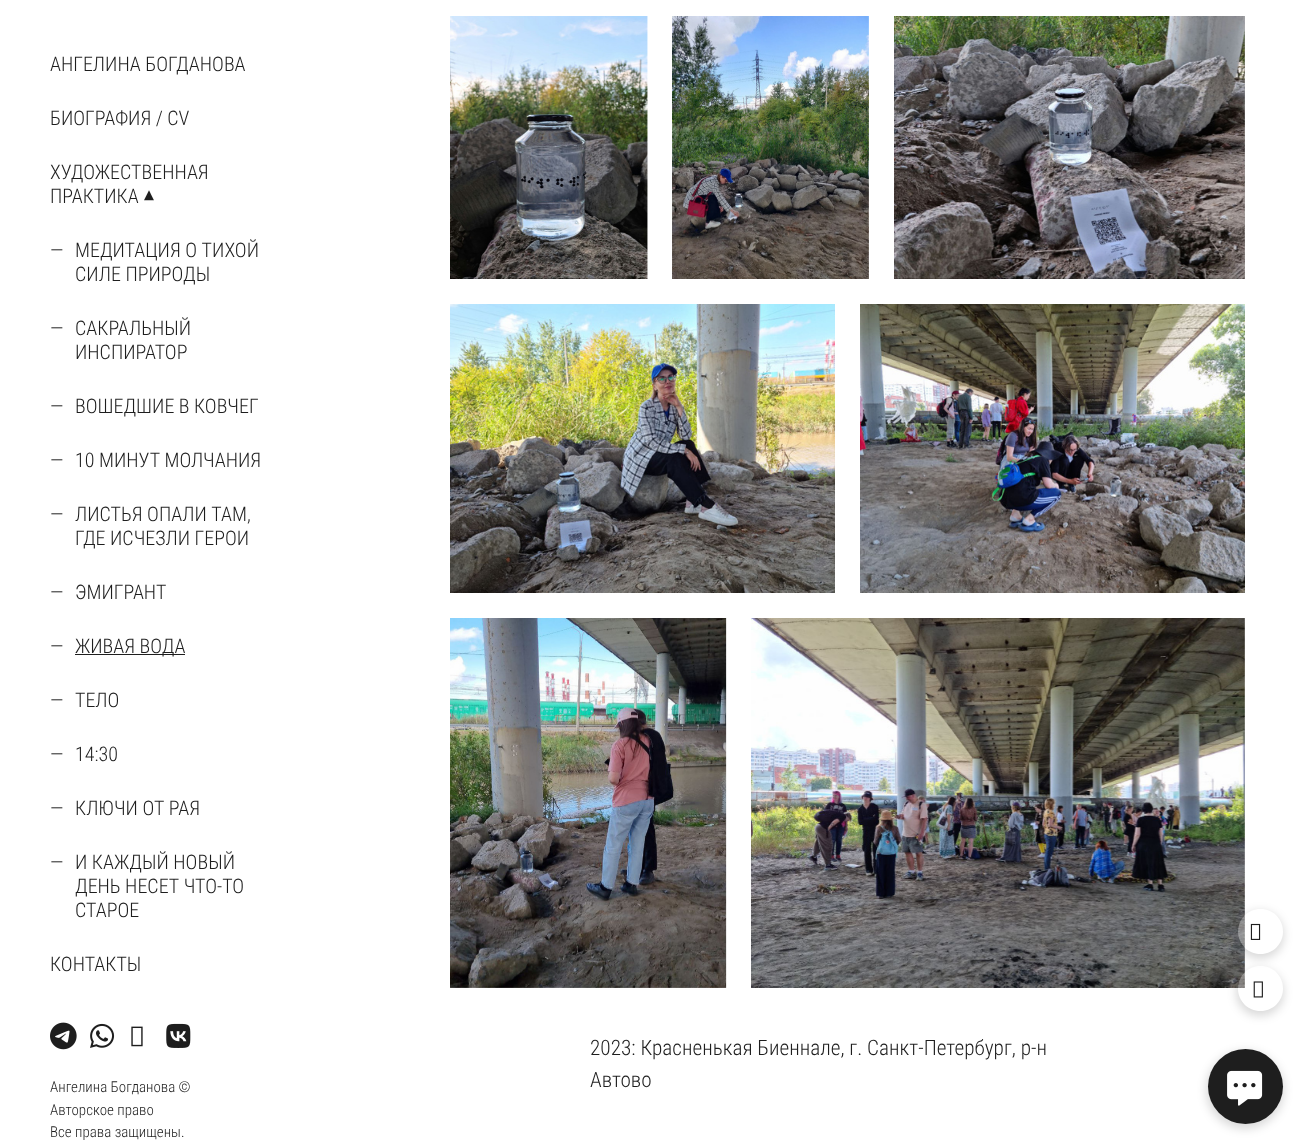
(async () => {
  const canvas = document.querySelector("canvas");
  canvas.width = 1307;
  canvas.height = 1148;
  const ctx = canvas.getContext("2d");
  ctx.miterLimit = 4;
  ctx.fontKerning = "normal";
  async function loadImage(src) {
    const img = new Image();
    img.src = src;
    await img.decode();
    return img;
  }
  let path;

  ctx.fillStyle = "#ffffff";
  ctx.fillRect(0, 0, 1307, 1148);
  ctx.fillStyle = "#1e1e1e";
  ctx.fillRect(75, 654, 110, 1);
  ctx.drawImage(await loadImage("img/1.png"), 50, 1022, 27, 28);
  ctx.drawImage(await loadImage("img/2.png"), 90, 1023, 25, 25);
  ctx.drawImage(await loadImage("img/3.png"), 131, 1026, 12, 21);
  ctx.drawImage(await loadImage("img/4.png"), 166, 1023, 25, 25);
  ctx.drawImage(await loadImage("img/5.png"), 450, 16, 198, 263);
  ctx.drawImage(await loadImage("img/6.png"), 672, 16, 197, 263);
  ctx.drawImage(await loadImage("img/7.png"), 894, 16, 351, 263);
  ctx.drawImage(await loadImage("img/8.png"), 450, 304, 385, 289);
  ctx.drawImage(await loadImage("img/9.png"), 860, 304, 385, 289);
  ctx.drawImage(await loadImage("img/10.png"), 450, 618, 277, 370);
  ctx.drawImage(await loadImage("img/11.png"), 751, 618, 494, 370);
  ctx.save();
  path = new Path2D("M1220 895H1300V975H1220ZM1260.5 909C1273 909 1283 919 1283 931.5C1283 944 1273 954 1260.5 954C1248 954 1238 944 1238 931.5C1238 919 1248 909 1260.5 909Z");
  ctx.clip(path, "evenodd");
  ctx.fillStyle = "rgba(0, 0, 0, 0.15)";
  ctx.filter = "blur(5px)";
  ctx.beginPath();
  ctx.roundRect(1236, 911, 48, 48, 24);
  ctx.fill();
  ctx.filter = "none";
  ctx.restore();
  ctx.fillStyle = "rgba(255, 255, 255, 0.3)";
  ctx.beginPath();
  ctx.arc(1260.5, 931.5, 22.5, 0, Math.PI * 2);
  ctx.fill();
  ctx.drawImage(await loadImage("img/12.png"), 1250, 923, 11, 17);
  ctx.save();
  path = new Path2D("M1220 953H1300V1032H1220ZM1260.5 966C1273 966 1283 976 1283 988.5C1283 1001 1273 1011 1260.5 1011C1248 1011 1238 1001 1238 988.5C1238 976 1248 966 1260.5 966Z");
  ctx.clip(path, "evenodd");
  ctx.fillStyle = "rgba(0, 0, 0, 0.15)";
  ctx.filter = "blur(5px)";
  ctx.beginPath();
  ctx.roundRect(1236, 969, 48, 47, 23.5);
  ctx.fill();
  ctx.filter = "none";
  ctx.restore();
  ctx.beginPath();
  ctx.arc(1260.5, 988.5, 22.5, 0, Math.PI * 2);
  ctx.fill();
  ctx.drawImage(await loadImage("img/13.png"), 1253, 981, 10, 17);
  ctx.fillStyle = "rgba(0, 0, 0, 0.15)";
  ctx.filter = "blur(5px)";
  ctx.beginPath();
  ctx.roundRect(1206, 1051, 78, 78, 39);
  ctx.fill();
  ctx.filter = "none";
  ctx.fillStyle = "#1e1e1e";
  ctx.beginPath();
  ctx.arc(1245.5, 1086.5, 37.5, 0, Math.PI * 2);
  ctx.fill();
  ctx.drawImage(await loadImage("img/14.png"), 1227, 1070, 36, 36);
  ctx.font = "300 20px Roboto Condensed";
  for (const [text, x, y] of [
    ["АНГЕЛИНА БОГДАНОВА", 50, 71],
    ["БИОГРАФИЯ / CV", 50, 125],
    ["ХУДОЖЕСТВЕННАЯ", 50, 179],
    ["ПРАКТИКА", 50, 203],
  ]) {
    ctx.fillText(text, x, y);
  }
  ctx.font = "20px DejaVu Sans";
  ctx.save();
  ctx.translate(154, 190);
  ctx.rotate(180 * Math.PI / 180);
  ctx.fillText("▾", 0, 0);
  ctx.restore();
  ctx.font = "300 20px Roboto Condensed";
  for (const [text, x, y] of [
    ["—", 50, 257],
    ["МЕДИТАЦИЯ О ТИХОЙ", 75, 257],
    ["СИЛЕ ПРИРОДЫ", 75, 281],
    ["—", 50, 335],
    ["САКРАЛЬНЫЙ", 75, 335],
    ["ИНСПИРАТОР", 75, 359],
    ["—", 50, 413],
    ["ВОШЕДШИЕ В КОВЧЕГ", 75, 413],
    ["—", 50, 467],
    ["10 МИНУТ МОЛЧАНИЯ", 75, 467],
    ["—", 50, 521],
    ["ЛИСТЬЯ ОПАЛИ ТАМ,", 75, 521],
    ["ГДЕ ИСЧЕЗЛИ ГЕРОИ", 75, 545],
    ["—", 50, 599],
    ["ЭМИГРАНТ", 75, 599],
    ["—", 50, 653],
    ["ЖИВАЯ ВОДА", 75, 653],
    ["—", 50, 707],
    ["ТЕЛО", 75, 707],
    ["—", 50, 761],
    ["14:30", 75, 761],
    ["—", 50, 815],
    ["КЛЮЧИ ОТ РАЯ", 75, 815],
    ["—", 50, 869],
    ["И КАЖДЫЙ НОВЫЙ", 75, 869],
    ["ДЕНЬ НЕСЕТ ЧТО-ТО", 75, 893],
    ["СТАРОЕ", 75, 917],
    ["КОНТАКТЫ", 50, 971],
  ]) {
    ctx.fillText(text, x, y);
  }
  ctx.font = "300 15px Roboto Condensed";
  for (const [text, x, y] of [
    ["Ангелина Богданова ©", 50, 1092],
    ["Авторское право", 50, 1115],
    ["Все права защищены.", 50, 1137],
  ]) {
    ctx.fillText(text, x, y);
  }
  ctx.font = "300 21.25px Roboto Condensed";
  ctx.fillText("2023: Красненькая Биеннале, г. Санкт-Петербург, р-н", 590, 1055);
  ctx.fillText("Автово", 590, 1087);
})();
